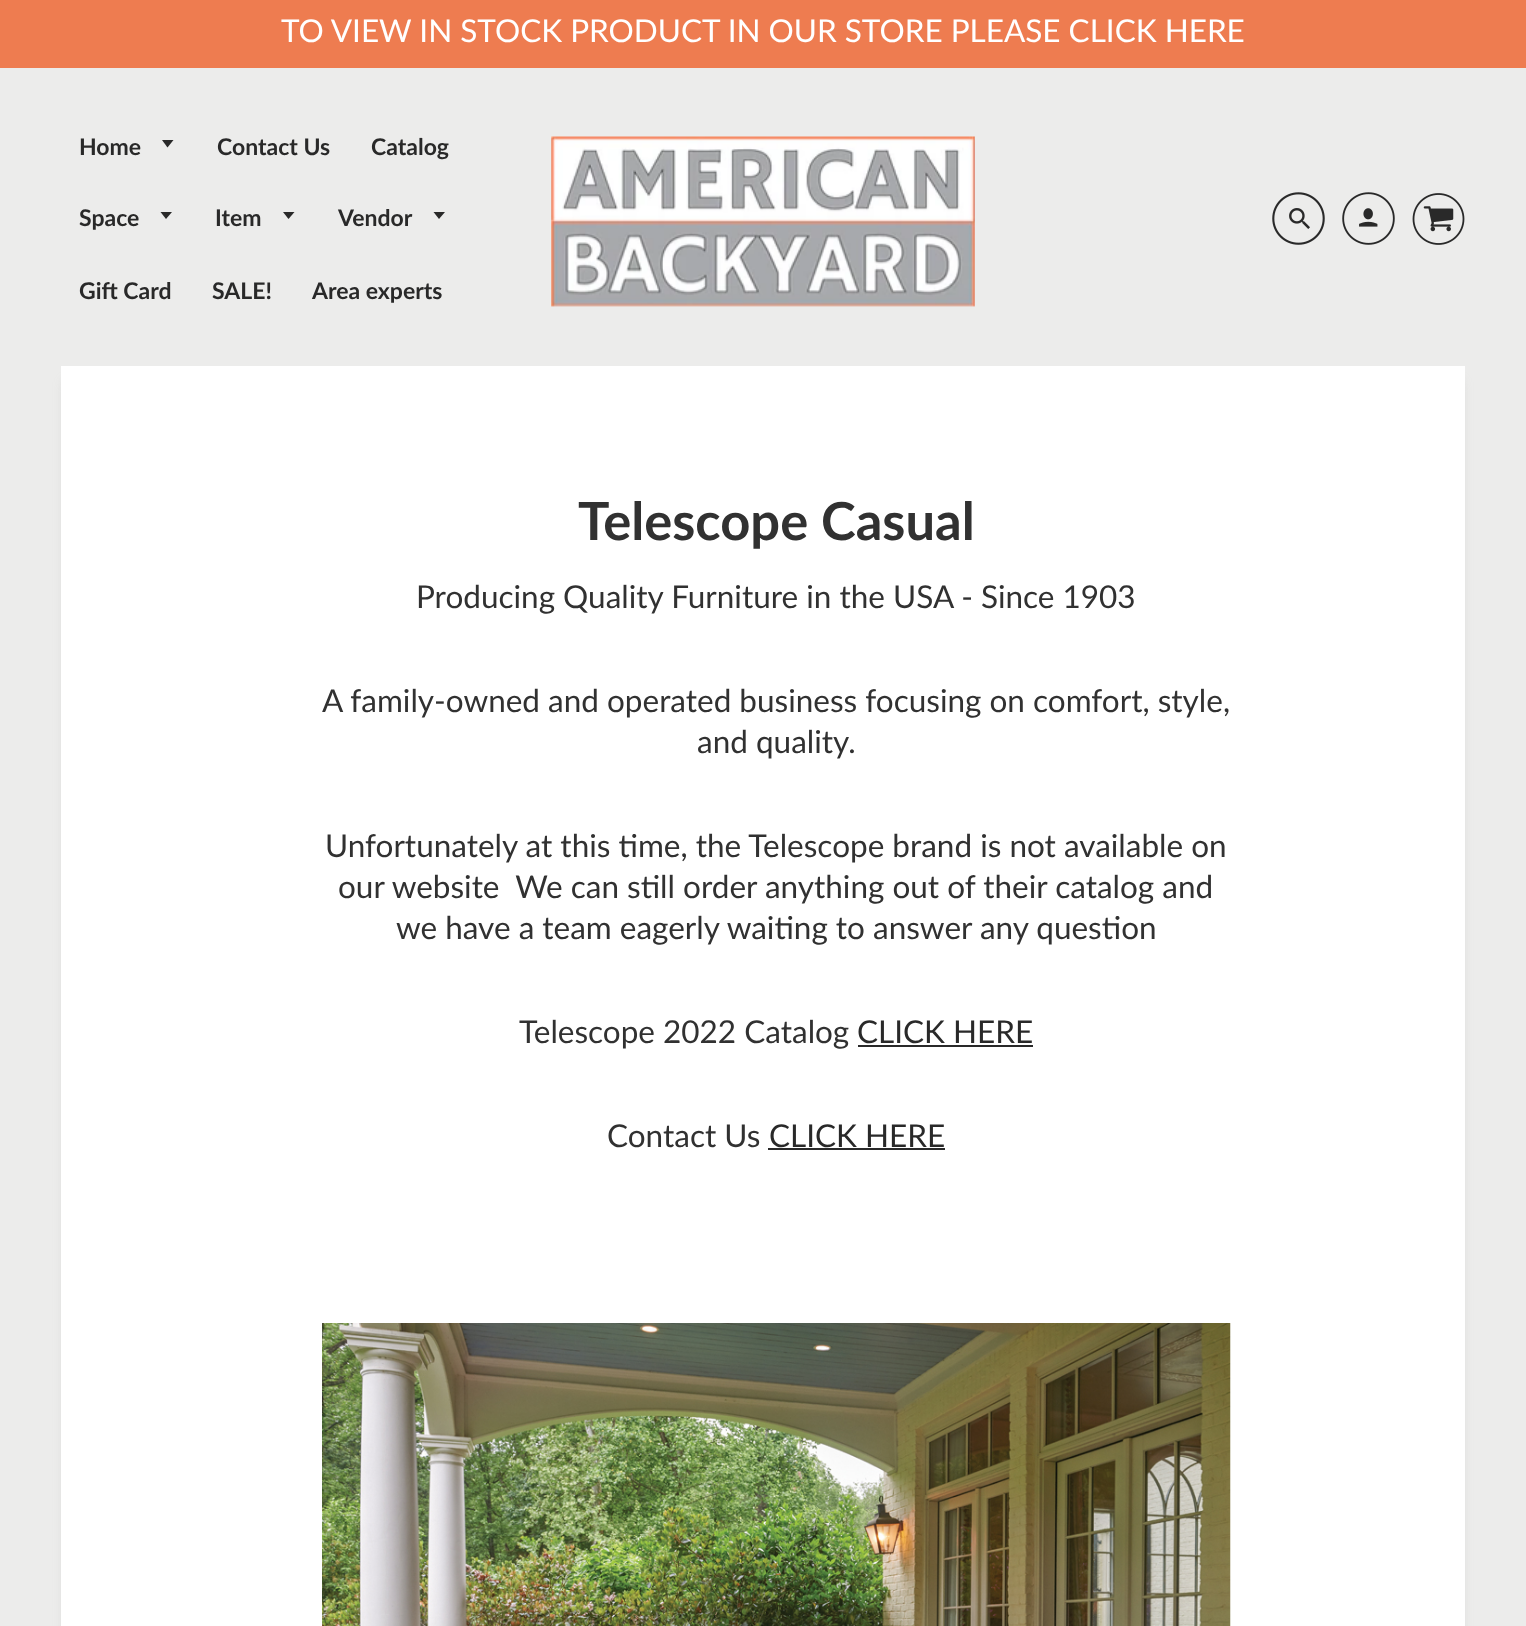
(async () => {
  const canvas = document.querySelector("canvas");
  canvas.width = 1526;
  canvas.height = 1626;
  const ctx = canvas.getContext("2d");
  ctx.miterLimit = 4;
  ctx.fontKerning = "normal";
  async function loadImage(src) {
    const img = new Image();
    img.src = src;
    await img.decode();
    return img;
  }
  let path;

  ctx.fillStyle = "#ececeb";
  ctx.fillRect(0, 0, 1526, 1626);
  ctx.fillStyle = "#ee7c50";
  ctx.fillRect(0, 0, 1526, 68);
  ctx.fillStyle = "#292929";
  path = new Path2D("M162 140L167.5 147.5L173.5 140Z");
  ctx.fill(path);
  path = new Path2D("M160.5 212L166 219L172 212Z");
  ctx.fill(path);
  path = new Path2D("M283 212L288.5 219L294.5 212Z");
  ctx.fill(path);
  path = new Path2D("M433.5 212L439 219L445 212Z");
  ctx.fill(path);
  ctx.drawImage(await loadImage("img/1.png"), 551, 136, 424, 171);
  ctx.drawImage(await loadImage("img/2.png"), 1272, 192, 53, 53);
  ctx.drawImage(await loadImage("img/3.png"), 1342, 192, 53, 53);
  ctx.drawImage(await loadImage("img/4.png"), 1412, 193, 53, 52);
  ctx.fillStyle = "rgba(163, 163, 163, 0.32)";
  ctx.filter = "blur(6px)";
  ctx.beginPath();
  ctx.rect(65, 382, 1396, 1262);
  ctx.fill();
  ctx.filter = "none";
  for (const [x, y, w, h, color] of [
    [61, 366, 1404, 1260, "#ffffff"],
    [858, 1045, 175, 2, "#292929"],
    [768, 1148, 177, 2, "#292929"],
  ]) {
    ctx.fillStyle = color;
    ctx.fillRect(x, y, w, h);
  }
  ctx.drawImage(await loadImage("img/5.png"), 322, 1323, 909, 303);
  ctx.font = "31.5px Lato";
  ctx.fillStyle = "#ffffff";
  ctx.fillText("TO VIEW IN STOCK PRODUCT IN OUR STORE PLEASE CLICK HERE", 281, 42);
  ctx.font = "bold 23px Lato";
  ctx.fillStyle = "#292929";
  for (const [text, x, y] of [
    ["Home", 79, 155],
    ["Contact Us", 217, 155],
    ["Catalog", 371, 155],
    ["Space", 79, 226],
    ["Item", 215, 226],
    ["Vendor", 338, 226],
    ["Gift Card", 79, 299],
    ["SALE!", 212, 299],
    ["Area experts", 312, 299],
  ]) {
    ctx.fillText(text, x, y);
  }
  ctx.font = "bold 52.5px Lato";
  ctx.fillStyle = "#313131";
  ctx.fillText("Telescope Casual", 578, 540);
  ctx.font = "31.5px Lato";
  for (const [text, x, y] of [
    ["Producing Quality Furniture in the USA - Since 1903", 416, 608],
    ["A family-owned and operated business focusing on comfort, style,", 322, 712],
    ["and quality.", 697, 753],
    ["Unfortunately at this time, the Telescope brand is not available on", 325, 857],
    ["our website  We can still order anything out of their catalog and", 338, 898],
    ["we have a team eagerly waiting to answer any question", 396, 939],
    ["Telescope 2022 Catalog", 519, 1043],
  ]) {
    ctx.fillText(text, x, y);
  }
  ctx.fillStyle = "#292929";
  ctx.fillText("CLICK HERE", 857, 1043);
  ctx.fillStyle = "#313131";
  ctx.fillText("Contact Us", 607, 1147);
  ctx.fillStyle = "#292929";
  ctx.fillText("CLICK HERE", 769, 1147);
})();
